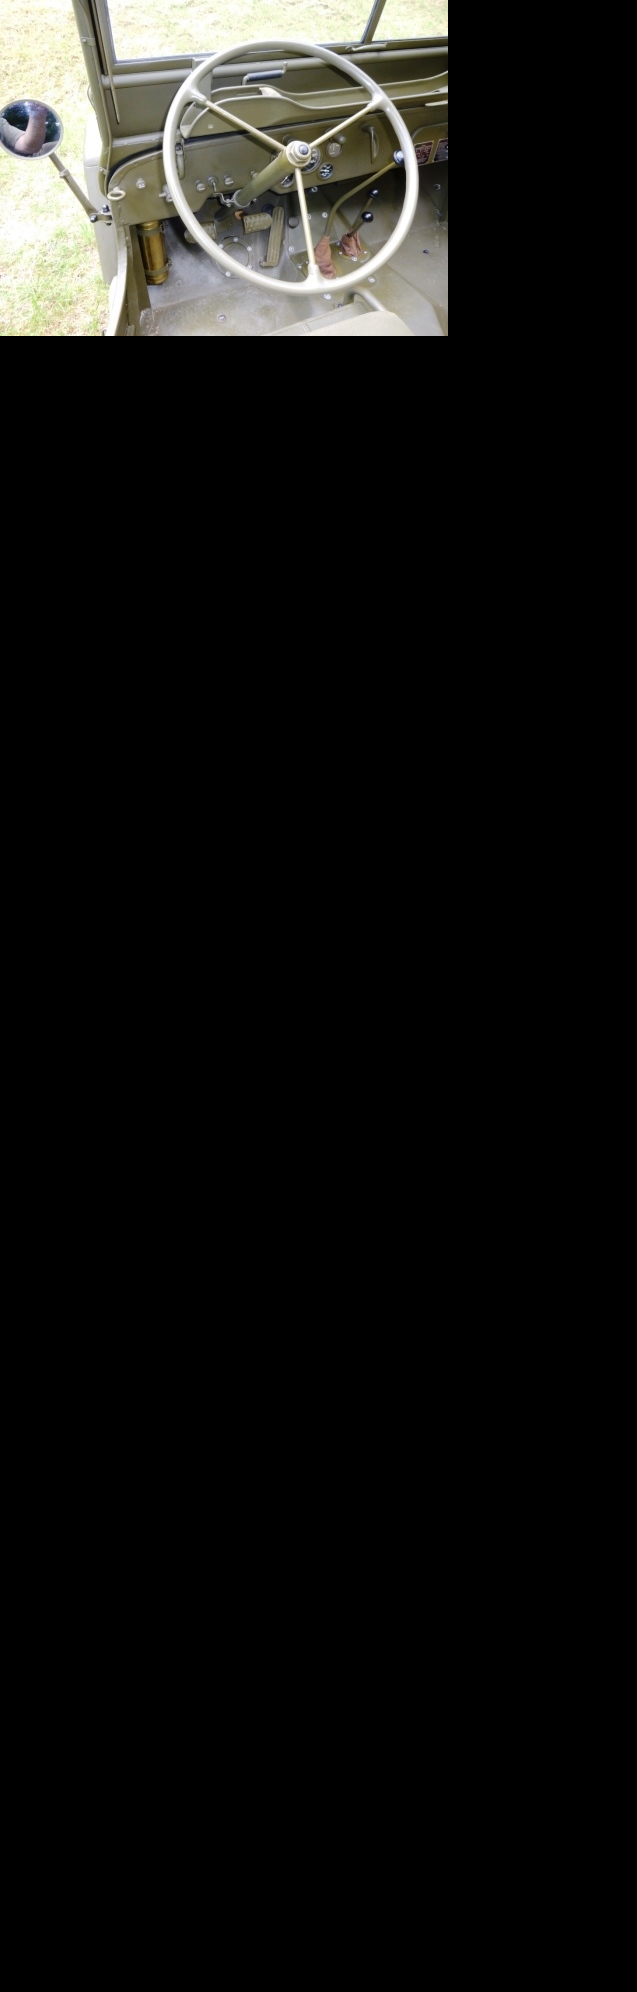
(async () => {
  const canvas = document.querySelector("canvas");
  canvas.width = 637;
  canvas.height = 1992;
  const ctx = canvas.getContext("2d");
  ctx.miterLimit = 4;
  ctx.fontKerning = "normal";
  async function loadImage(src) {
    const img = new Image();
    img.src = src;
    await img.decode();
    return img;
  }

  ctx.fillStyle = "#000000";
  ctx.fillRect(0, 0, 637, 1992);
  ctx.drawImage(await loadImage("img/1.png"), 0, 0, 448, 336);
})();
